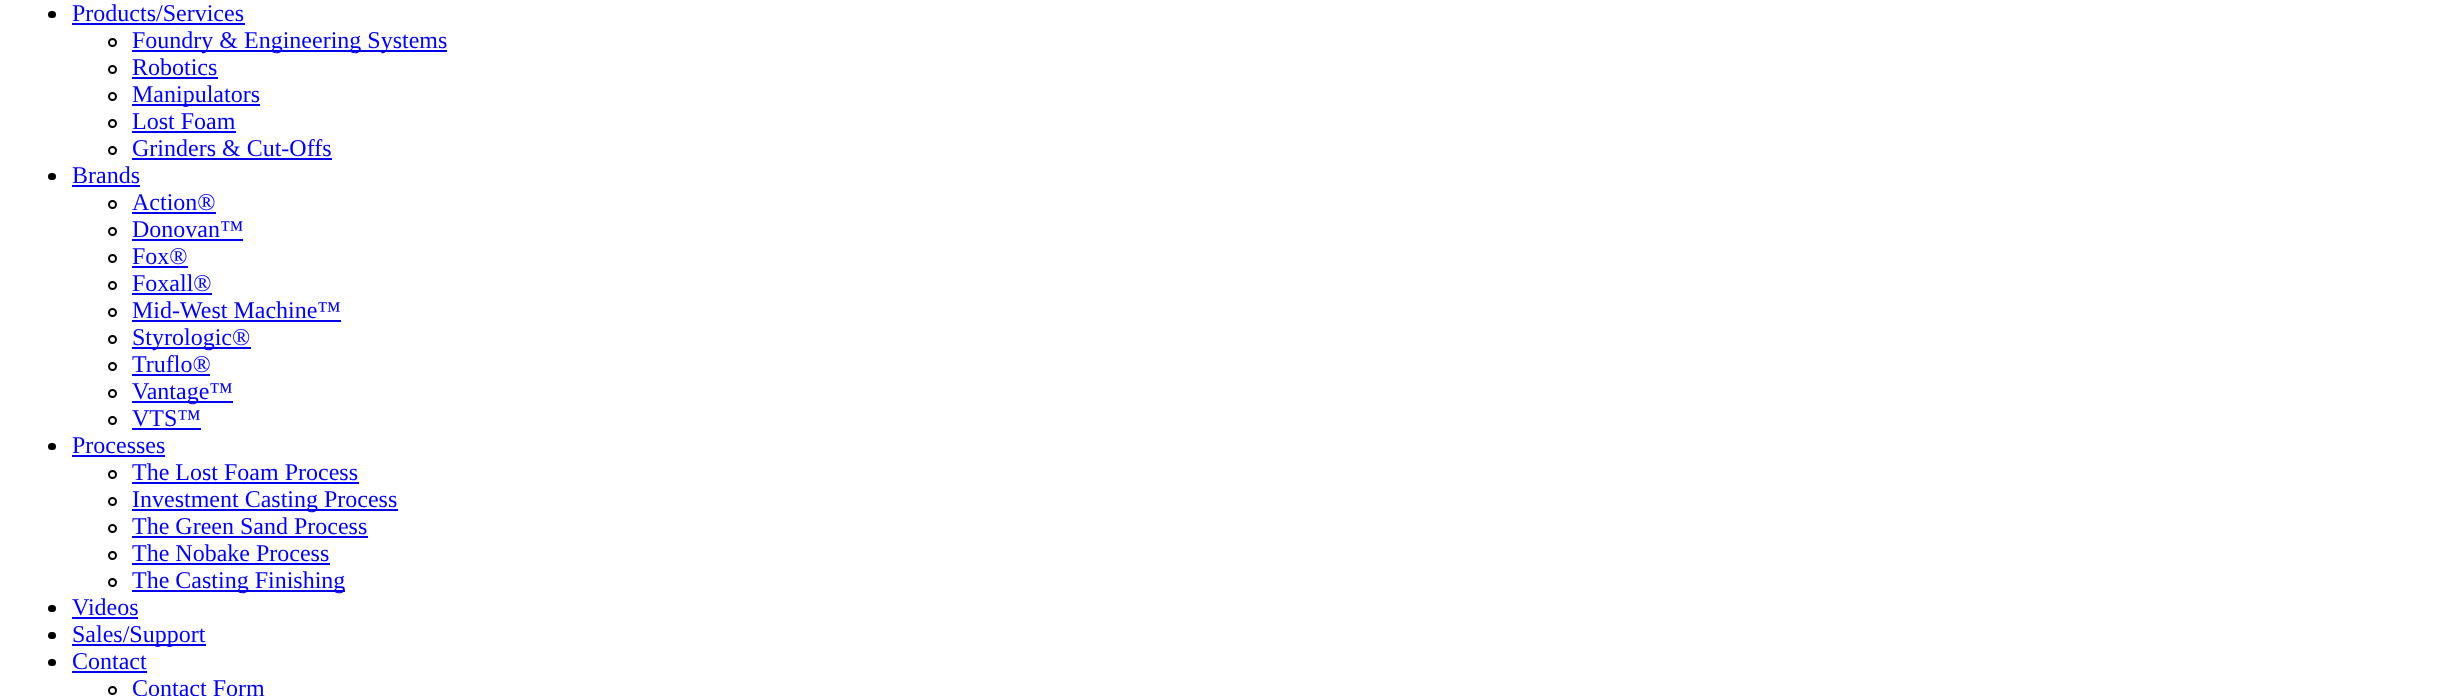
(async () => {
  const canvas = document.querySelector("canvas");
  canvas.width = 2444;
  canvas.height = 696;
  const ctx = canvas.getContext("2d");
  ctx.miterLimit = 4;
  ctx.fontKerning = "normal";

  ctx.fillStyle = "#ffffff";
  ctx.fillRect(0, 0, 2444, 696);
  ctx.fillStyle = "#000000";
  ctx.beginPath();
  ctx.roundRect(48, 11, 8, 7, 3.5);
  ctx.fill();
  ctx.fillStyle = "#0000ee";
  ctx.fillRect(72, 23, 173, 2);
  ctx.beginPath();
  ctx.arc(112.5, 42.5, 3.5, 0, Math.PI * 2);
  ctx.strokeStyle = "#000000";
  ctx.lineWidth = 2;
  ctx.stroke();
  ctx.fillRect(132, 50, 315, 2);
  ctx.beginPath();
  ctx.arc(112.5, 69.5, 3.5, 0, Math.PI * 2);
  ctx.stroke();
  ctx.fillRect(132, 77, 86, 2);
  ctx.beginPath();
  ctx.arc(112.5, 96.5, 3.5, 0, Math.PI * 2);
  ctx.stroke();
  ctx.fillRect(132, 104, 128, 2);
  ctx.beginPath();
  ctx.arc(112.5, 123.5, 3.5, 0, Math.PI * 2);
  ctx.stroke();
  ctx.fillRect(132, 131, 104, 2);
  ctx.beginPath();
  ctx.arc(112.5, 150.5, 3.5, 0, Math.PI * 2);
  ctx.stroke();
  ctx.fillRect(132, 158, 200, 2);
  ctx.fillStyle = "#000000";
  ctx.beginPath();
  ctx.roundRect(48, 173, 8, 7, 3.5);
  ctx.fill();
  ctx.fillStyle = "#0000ee";
  ctx.fillRect(72, 185, 68, 2);
  ctx.beginPath();
  ctx.arc(112.5, 204.5, 3.5, 0, Math.PI * 2);
  ctx.stroke();
  ctx.fillRect(132, 212, 84, 2);
  ctx.beginPath();
  ctx.arc(112.5, 231.5, 3.5, 0, Math.PI * 2);
  ctx.stroke();
  ctx.fillRect(132, 239, 111, 2);
  ctx.beginPath();
  ctx.arc(112.5, 258.5, 3.5, 0, Math.PI * 2);
  ctx.stroke();
  ctx.fillRect(132, 266, 56, 2);
  ctx.beginPath();
  ctx.arc(112.5, 285.5, 3.5, 0, Math.PI * 2);
  ctx.stroke();
  ctx.fillRect(132, 293, 80, 2);
  ctx.beginPath();
  ctx.arc(112.5, 312.5, 3.5, 0, Math.PI * 2);
  ctx.stroke();
  ctx.fillRect(132, 320, 209, 2);
  ctx.beginPath();
  ctx.arc(112.5, 339.5, 3.5, 0, Math.PI * 2);
  ctx.stroke();
  ctx.fillRect(132, 347, 119, 2);
  ctx.beginPath();
  ctx.arc(112.5, 366.5, 3.5, 0, Math.PI * 2);
  ctx.stroke();
  ctx.fillRect(132, 374, 78, 2);
  ctx.beginPath();
  ctx.arc(112.5, 393.5, 3.5, 0, Math.PI * 2);
  ctx.stroke();
  ctx.fillRect(132, 401, 101, 2);
  ctx.beginPath();
  ctx.arc(112.5, 420.5, 3.5, 0, Math.PI * 2);
  ctx.stroke();
  ctx.fillRect(132, 428, 69, 2);
  ctx.fillStyle = "#000000";
  ctx.beginPath();
  ctx.roundRect(48, 443, 8, 7, 3.5);
  ctx.fill();
  ctx.fillStyle = "#0000ee";
  ctx.fillRect(72, 455, 93, 2);
  ctx.beginPath();
  ctx.arc(112.5, 474.5, 3.5, 0, Math.PI * 2);
  ctx.stroke();
  ctx.fillRect(132, 482, 227, 2);
  ctx.beginPath();
  ctx.arc(112.5, 501.5, 3.5, 0, Math.PI * 2);
  ctx.stroke();
  ctx.fillRect(132, 509, 266, 2);
  ctx.beginPath();
  ctx.arc(112.5, 528.5, 3.5, 0, Math.PI * 2);
  ctx.stroke();
  ctx.fillRect(132, 536, 236, 2);
  ctx.beginPath();
  ctx.arc(112.5, 555.5, 3.5, 0, Math.PI * 2);
  ctx.stroke();
  ctx.fillRect(132, 563, 198, 2);
  ctx.beginPath();
  ctx.arc(112.5, 582.5, 3.5, 0, Math.PI * 2);
  ctx.stroke();
  ctx.fillRect(132, 590, 213, 2);
  ctx.fillStyle = "#000000";
  ctx.beginPath();
  ctx.roundRect(48, 605, 8, 7, 3.5);
  ctx.fill();
  ctx.fillStyle = "#0000ee";
  ctx.fillRect(72, 617, 66, 2);
  ctx.fillStyle = "#000000";
  ctx.beginPath();
  ctx.roundRect(48, 632, 8, 7, 3.5);
  ctx.fill();
  ctx.fillStyle = "#0000ee";
  ctx.fillRect(72, 644, 134, 2);
  ctx.fillStyle = "#000000";
  ctx.beginPath();
  ctx.roundRect(48, 659, 8, 7, 3.5);
  ctx.fill();
  ctx.fillStyle = "#0000ee";
  ctx.fillRect(72, 671, 75, 2);
  ctx.beginPath();
  ctx.arc(112.5, 690.5, 3.5, 0, Math.PI * 2);
  ctx.stroke();
  ctx.font = "24px Liberation Serif";
  for (const [text, x, y] of [
    ["Products/Services", 72, 21],
    ["Foundry & Engineering Systems", 132, 48],
    ["Robotics", 132, 75],
    ["Manipulators", 132, 102],
    ["Lost Foam", 132, 129],
    ["Grinders & Cut-Offs", 132, 156],
    ["Brands", 72, 183],
    ["Action®", 132, 210],
    ["Donovan™", 132, 237],
    ["Fox®", 132, 264],
    ["Foxall®", 132, 291],
    ["Mid-West Machine™", 132, 318],
    ["Styrologic®", 132, 345],
    ["Truflo®", 132, 372],
    ["Vantage™", 132, 399],
    ["VTS™", 132, 426],
    ["Processes", 72, 453],
    ["The Lost Foam Process", 132, 480],
    ["Investment Casting Process", 132, 507],
    ["The Green Sand Process", 132, 534],
    ["The Nobake Process", 132, 561],
    ["The Casting Finishing", 132, 588],
    ["Videos", 72, 615],
    ["Sales/Support", 72, 642],
    ["Contact", 72, 669],
    ["Contact Form", 132, 696],
  ]) {
    ctx.fillText(text, x, y);
  }
})();
